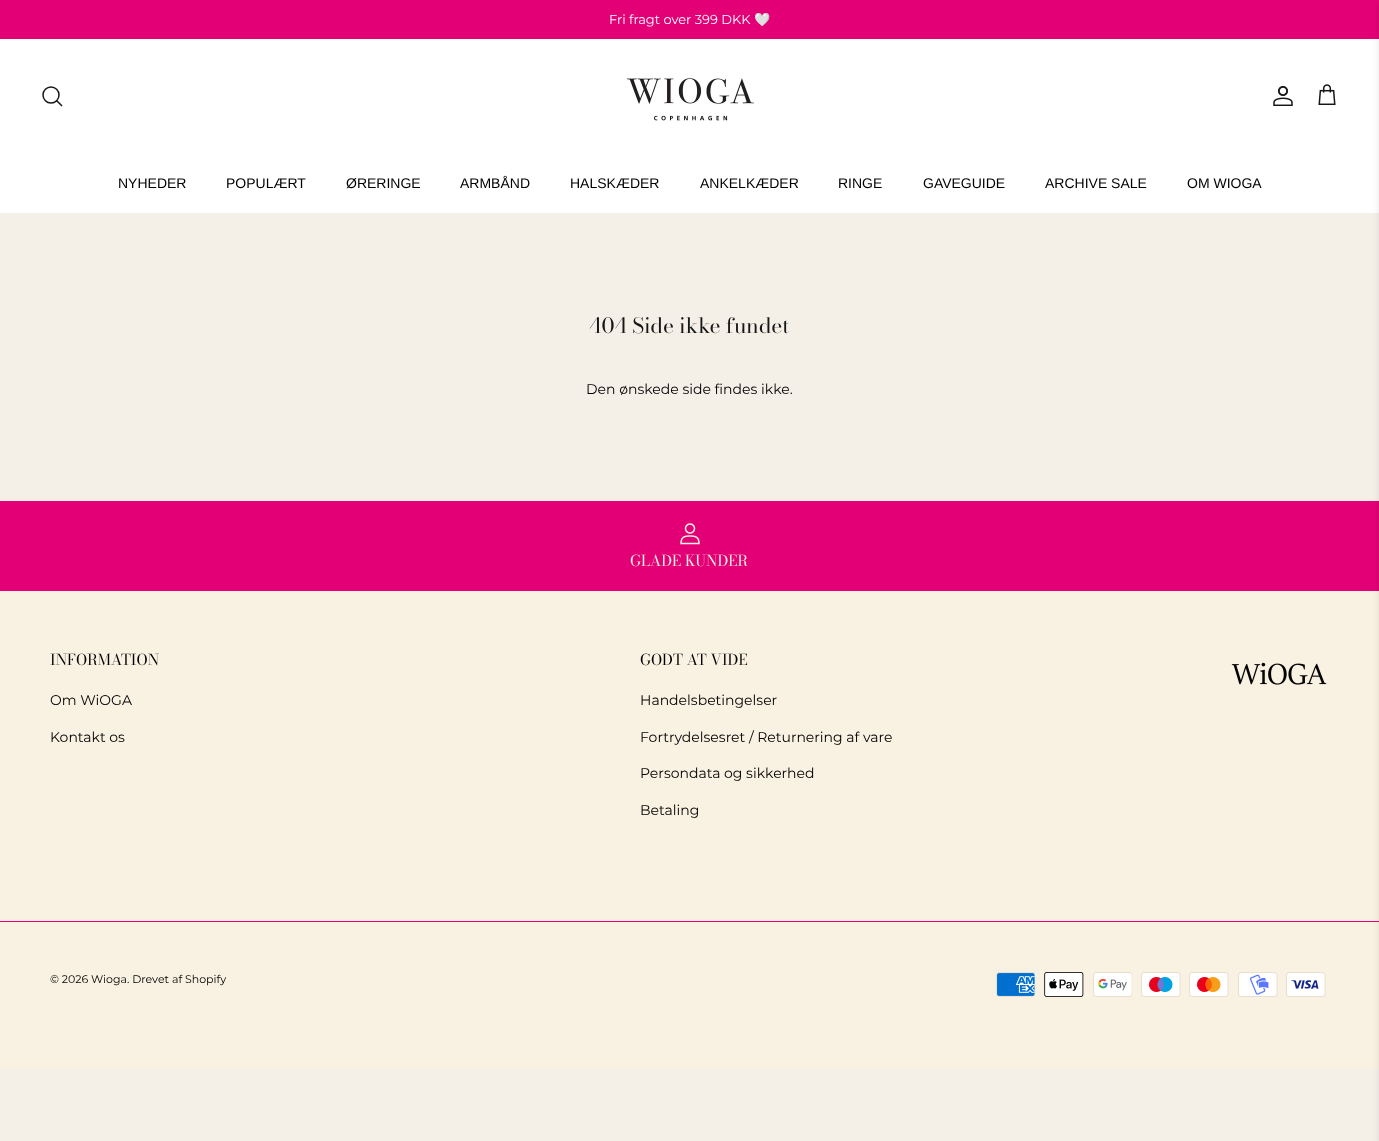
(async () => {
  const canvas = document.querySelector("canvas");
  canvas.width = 1379;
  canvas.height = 1141;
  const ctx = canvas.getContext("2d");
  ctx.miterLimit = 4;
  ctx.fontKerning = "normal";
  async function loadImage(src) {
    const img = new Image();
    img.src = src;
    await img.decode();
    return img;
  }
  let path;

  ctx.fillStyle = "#f4f0e8";
  ctx.fillRect(0, 0, 1379, 1141);
  for (const [x, y, w, h, color] of [
    [0, 0, 1379, 39, "#e30076"],
    [0, 39, 1379, 174, "#ffffff"],
    [0, 591, 1379, 478, "#f9f1e1"],
    [0, 501, 1379, 90, "#e30076"],
    [0, 921, 1379, 1, "#e30076"],
  ]) {
    ctx.fillStyle = color;
    ctx.fillRect(x, y, w, h);
  }
  ctx.fillStyle = "rgba(0, 0, 0, 0.1)";
  ctx.filter = "blur(3px)";
  ctx.beginPath();
  ctx.rect(1379, 4, 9, 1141);
  ctx.fill();
  ctx.filter = "none";
  ctx.beginPath();
  ctx.arc(51, 95, 8, 0, Math.PI * 2);
  ctx.strokeStyle = "#171717";
  ctx.lineWidth = 1.5;
  ctx.stroke();
  path = new Path2D("M57 101L61.5 105.5");
  ctx.lineCap = "square";
  ctx.stroke(path);
  ctx.drawImage(await loadImage("img/1.png"), 626, 77, 128, 44);
  ctx.drawImage(await loadImage("img/2.png"), 1273, 86, 20, 20);
  ctx.drawImage(await loadImage("img/3.png"), 1318, 84, 18, 21);
  ctx.drawImage(await loadImage("img/4.png"), 680, 523, 20, 22);
  ctx.drawImage(await loadImage("img/5.png"), 1231, 662, 96, 23);
  ctx.drawImage(await loadImage("img/6.png"), 996, 972, 39, 25);
  ctx.drawImage(await loadImage("img/7.png"), 1044, 972, 40, 25);
  ctx.drawImage(await loadImage("img/8.png"), 1093, 972, 39, 25);
  ctx.drawImage(await loadImage("img/9.png"), 1141, 972, 40, 25);
  ctx.drawImage(await loadImage("img/10.png"), 1189, 972, 40, 25);
  ctx.drawImage(await loadImage("img/11.png"), 1238, 972, 40, 25);
  ctx.drawImage(await loadImage("img/12.png"), 1286, 972, 40, 25);
  ctx.font = "13px Montserrat";
  ctx.fillStyle = "#ffffff";
  ctx.fillText("Fri fragt over 399 DKK", 609, 24);
  ctx.font = "13px Noto Color Emoji";
  ctx.fillText("🤍", 754, 24);
  ctx.font = "14px Liberation Sans";
  ctx.fillStyle = "#000000";
  for (const [text, x, y] of [
    ["NYHEDER", 118, 188],
    ["POPULÆRT", 226, 188],
    ["ØRERINGE", 346, 188],
    ["ARMBÅND", 460, 188],
    ["HALSKÆDER", 570, 188],
    ["ANKELKÆDER", 700, 188],
    ["RINGE", 838, 188],
    ["GAVEGUIDE", 923, 188],
    ["ARCHIVE SALE", 1045, 188],
    ["OM WIOGA", 1187, 188],
  ]) {
    ctx.fillText(text, x, y);
  }
  ctx.font = "21px Bodoni Moda";
  ctx.fillStyle = "#171717";
  ctx.fillText("404 Side ikke fundet", 589, 333);
  ctx.font = "14px Montserrat";
  ctx.fillStyle = "#000000";
  ctx.fillText("Den ønskede side findes ikke.", 586, 394);
  ctx.font = "15px 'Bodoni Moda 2'";
  ctx.fillStyle = "#f9f1e1";
  ctx.fillText("GLADE KUNDER", 630, 566);
  ctx.fillStyle = "#000000";
  ctx.fillText("INFORMATION", 50, 665);
  ctx.font = "14px Montserrat";
  ctx.fillText("Om WiOGA", 50, 705);
  ctx.fillText("Kontakt os", 50, 742);
  ctx.font = "15px 'Bodoni Moda 2'";
  ctx.fillText("GODT AT VIDE", 640, 665);
  ctx.font = "14px Montserrat";
  for (const [text, x, y] of [
    ["Handelsbetingelser", 640, 705],
    ["Fortrydelsesret / Returnering af vare", 640, 742],
    ["Persondata og sikkerhed", 640, 778],
    ["Betaling", 640, 815],
  ]) {
    ctx.fillText(text, x, y);
  }
  ctx.font = "11px Montserrat";
  ctx.fillText("© 2026 Wioga. Drevet af Shopify", 50, 983);
})();
